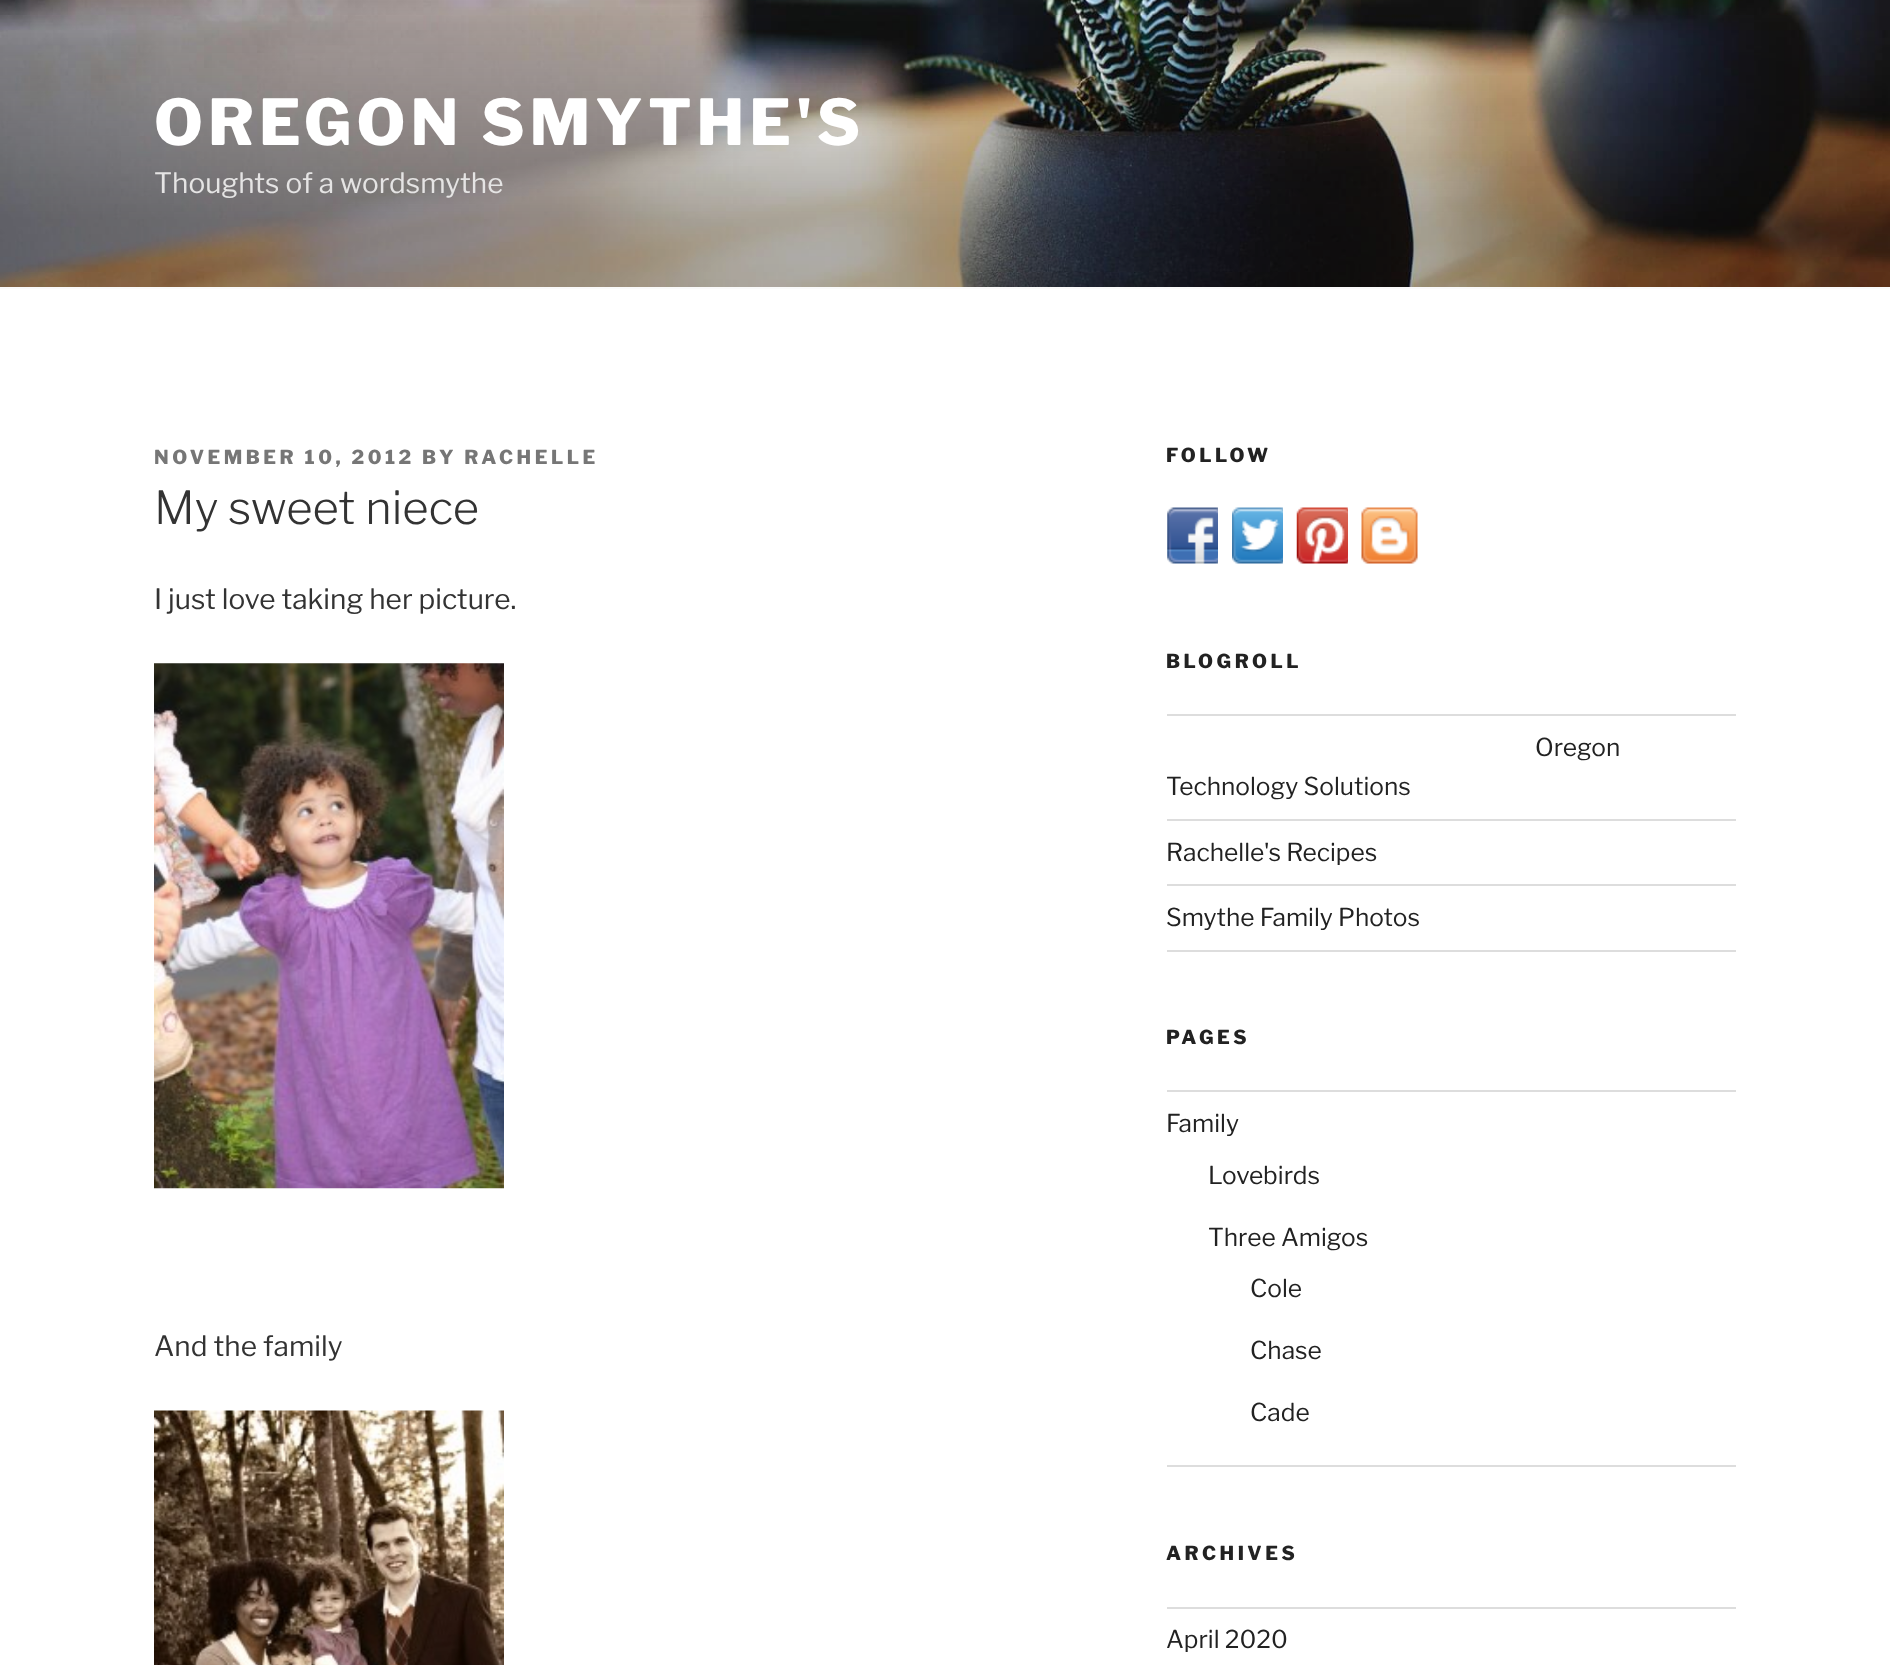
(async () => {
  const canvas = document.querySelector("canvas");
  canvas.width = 1890;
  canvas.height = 1665;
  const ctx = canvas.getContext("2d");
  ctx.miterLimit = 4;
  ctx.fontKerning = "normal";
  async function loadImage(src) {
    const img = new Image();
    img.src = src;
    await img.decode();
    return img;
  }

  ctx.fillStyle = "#ffffff";
  ctx.fillRect(0, 0, 1890, 1665);
  ctx.fillStyle = "#fafafa";
  ctx.fillRect(0, 287, 1890, 2);
  ctx.drawImage(await loadImage("img/1.png"), 0, 0, 1890, 287);
  ctx.drawImage(await loadImage("img/2.png"), 154, 663, 350, 526);
  ctx.drawImage(await loadImage("img/3.png"), 154, 1410, 350, 255);
  ctx.drawImage(await loadImage("img/4.png"), 1167, 507, 51, 57);
  ctx.drawImage(await loadImage("img/5.png"), 1232, 507, 51, 57);
  ctx.drawImage(await loadImage("img/6.png"), 1296, 507, 52, 57);
  ctx.drawImage(await loadImage("img/7.png"), 1361, 507, 57, 57);
  for (const [x, y, w, h, color] of [
    [1167, 714, 569, 2, "#dddddd"],
    [1167, 819, 569, 2, "#dddddd"],
    [1167, 884, 569, 2, "#dddddd"],
    [1167, 950, 569, 2, "#dddddd"],
    [1167, 1090, 569, 2, "#dddddd"],
    [1167, 1465, 569, 2, "#dddddd"],
    [1167, 1607, 569, 2, "#dddddd"],
  ]) {
    ctx.fillStyle = color;
    ctx.fillRect(x, y, w, h);
  }
  ctx.letterSpacing = "5px";
  ctx.font = "800 63px Libre Franklin";
  ctx.fillStyle = "#ffffff";
  ctx.fillText("OREGON SMYTHE'S", 154, 145);
  ctx.letterSpacing = "0px";
  ctx.font = "28px Libre Franklin";
  ctx.fillStyle = "#e5e4e4";
  ctx.fillText("Thoughts of a wordsmythe", 154, 193);
  ctx.letterSpacing = "3.5px";
  ctx.font = "800 19.25px Libre Franklin";
  ctx.fillStyle = "#767676";
  ctx.fillText("NOVEMBER 10, 2012 BY RACHELLE", 154, 464);
  ctx.letterSpacing = "0px";
  ctx.font = "300 45.5px Libre Franklin";
  ctx.fillStyle = "#333333";
  ctx.fillText("My sweet niece", 154, 524);
  ctx.font = "28px Libre Franklin";
  ctx.fillText("I just love taking her picture.", 154, 609);
  ctx.fillText("And the family", 154, 1356);
  ctx.letterSpacing = "3.5px";
  ctx.font = "800 19.25px Libre Franklin";
  ctx.fillStyle = "#222222";
  ctx.fillText("FOLLOW", 1166, 462);
  ctx.fillText("BLOGROLL", 1166, 668);
  ctx.letterSpacing = "0px";
  ctx.font = "24.5px Libre Franklin";
  for (const [text, x, y] of [
    ["Oregon", 1535, 756],
    ["Technology Solutions", 1166, 795],
    ["Rachelle's Recipes", 1166, 861],
    ["Smythe Family Photos", 1166, 926],
  ]) {
    ctx.fillText(text, x, y);
  }
  ctx.letterSpacing = "3.5px";
  ctx.font = "800 19.25px Libre Franklin";
  ctx.fillText("PAGES", 1166, 1044);
  ctx.letterSpacing = "0px";
  ctx.font = "24.5px Libre Franklin";
  for (const [text, x, y] of [
    ["Family", 1166, 1132],
    ["Lovebirds", 1208, 1184],
    ["Three Amigos", 1208, 1246],
    ["Cole", 1250, 1297],
    ["Chase", 1250, 1359],
    ["Cade", 1250, 1421],
  ]) {
    ctx.fillText(text, x, y);
  }
  ctx.letterSpacing = "3.5px";
  ctx.font = "800 19.25px Libre Franklin";
  ctx.fillText("ARCHIVES", 1166, 1560);
  ctx.letterSpacing = "0px";
  ctx.font = "24.5px Libre Franklin";
  ctx.fillText("April 2020", 1166, 1648);
})();
